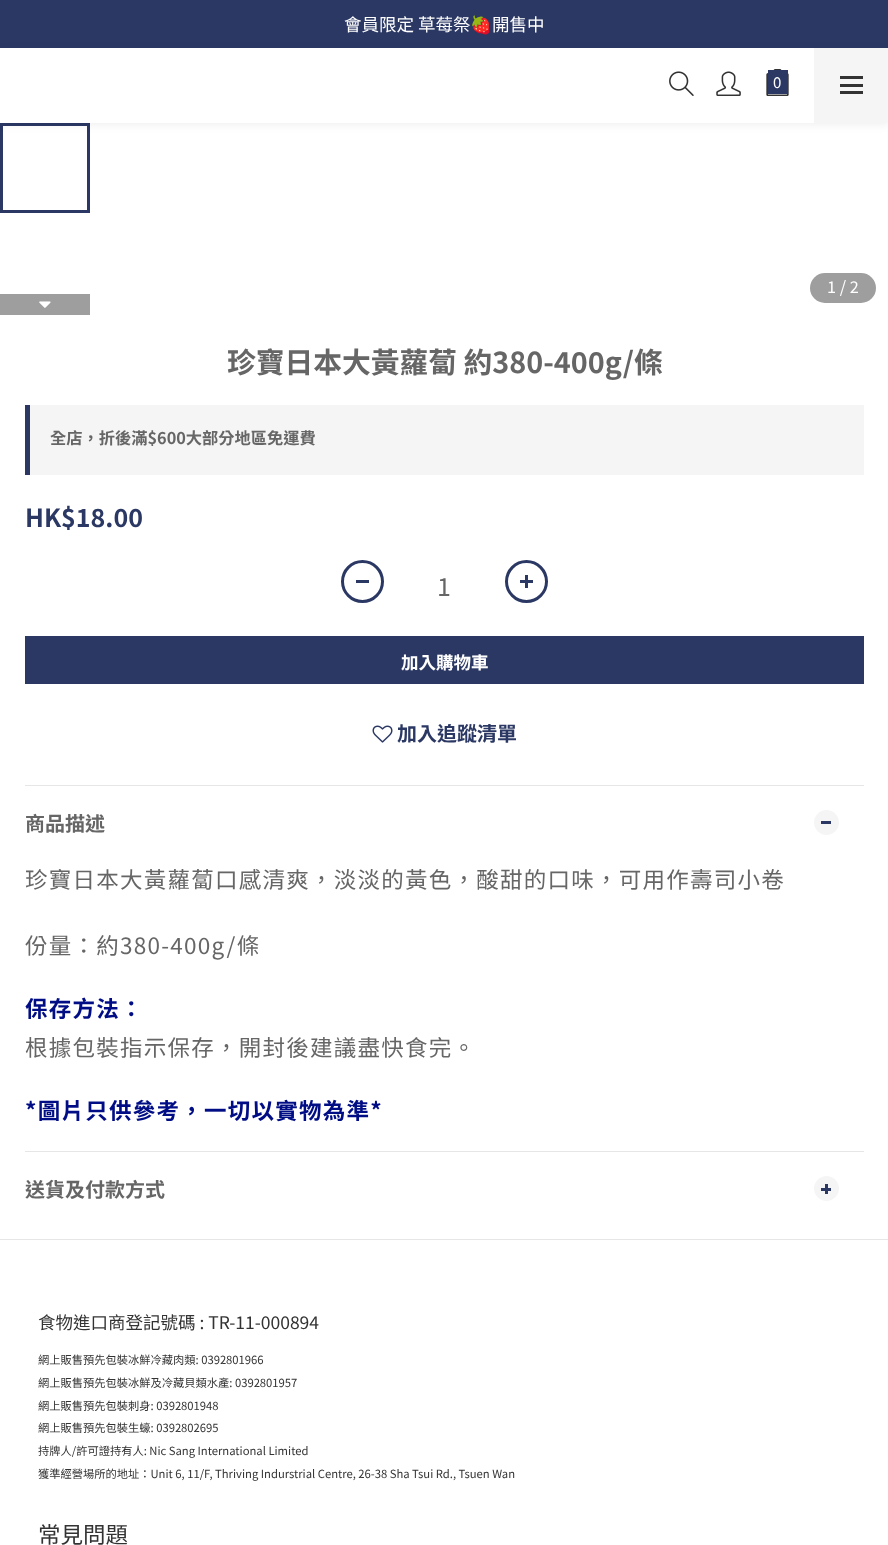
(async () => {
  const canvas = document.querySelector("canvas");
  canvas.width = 888;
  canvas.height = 1545;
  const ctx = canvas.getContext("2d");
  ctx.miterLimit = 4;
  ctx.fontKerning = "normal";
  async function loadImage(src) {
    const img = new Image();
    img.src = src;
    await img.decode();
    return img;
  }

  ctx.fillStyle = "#ffffff";
  ctx.fillRect(0, 0, 888, 1545);
  ctx.fillStyle = "#2b3864";
  ctx.fillRect(0, 0, 888, 48);
  ctx.strokeStyle = "#2b3864";
  ctx.lineWidth = 3;
  ctx.strokeRect(1.5, 124.5, 87, 87);
  ctx.fillStyle = "rgba(0, 0, 0, 0.06)";
  ctx.filter = "blur(4px)";
  ctx.beginPath();
  ctx.rect(0, 50, 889, 75);
  ctx.fill();
  ctx.filter = "none";
  ctx.fillStyle = "#ffffff";
  ctx.fillRect(0, 48, 814, 75);
  ctx.drawImage(await loadImage("img/1.png"), 669, 71, 25, 25);
  ctx.drawImage(await loadImage("img/2.png"), 716, 71, 25, 25);
  ctx.drawImage(await loadImage("img/3.png"), 766, 69, 23, 27);
  for (const [x, y, w, h, color] of [
    [768, 70, 20, 24, "#2b3864"],
    [814, 48, 74, 75, "#f5f5f5"],
    [840, 84, 23, 3, "#333333"],
    [840, 76, 23, 3, "#333333"],
    [840, 91, 23, 3, "#333333"],
    [0, 294, 90, 21, "#9e9e9e"],
  ]) {
    ctx.fillStyle = color;
    ctx.fillRect(x, y, w, h);
  }
  ctx.drawImage(await loadImage("img/4.png"), 39, 301, 12, 7);
  ctx.beginPath();
  ctx.roundRect(810, 273, 66, 30, 15);
  ctx.fill();
  ctx.fillStyle = "#f5f5f5";
  ctx.fillRect(30, 405, 834, 70);
  ctx.fillStyle = "#2b3864";
  ctx.fillRect(25, 405, 5, 70);
  ctx.beginPath();
  ctx.arc(362.5, 581.5, 20, 0, Math.PI * 2);
  ctx.stroke();
  ctx.fillRect(356, 580, 13, 3);
  ctx.beginPath();
  ctx.arc(526.5, 581.5, 20, 0, Math.PI * 2);
  ctx.stroke();
  for (const [x, y, w, h, color] of [
    [520, 580, 13, 3, "#2b3864"],
    [525, 575, 3, 13, "#2b3864"],
    [25, 636, 839, 48, "#2b3864"],
  ]) {
    ctx.fillStyle = color;
    ctx.fillRect(x, y, w, h);
  }
  ctx.drawImage(await loadImage("img/5.png"), 372, 725, 21, 18);
  ctx.fillStyle = "#e6e6e6";
  ctx.fillRect(25, 785, 839, 1);
  ctx.fillStyle = "#f5f5f5";
  ctx.beginPath();
  ctx.arc(826.5, 822.5, 12.5, 0, Math.PI * 2);
  ctx.fill();
  ctx.fillStyle = "#2b3864";
  ctx.fillRect(821, 821, 10, 3);
  ctx.fillStyle = "#e6e6e6";
  ctx.fillRect(25, 1151, 839, 1);
  ctx.fillStyle = "#f5f5f5";
  ctx.beginPath();
  ctx.arc(826.5, 1188.5, 12.5, 0, Math.PI * 2);
  ctx.fill();
  for (const [x, y, w, h, color] of [
    [821, 1188, 10, 3, "#2b3864"],
    [825, 1184, 3, 10, "#2b3864"],
    [0, 1239, 888, 1, "#e6e6e6"],
  ]) {
    ctx.fillStyle = color;
    ctx.fillRect(x, y, w, h);
  }
  ctx.font = "17.5px Noto Sans TC";
  ctx.fillStyle = "#ffffff";
  ctx.fillText("會員限定 草莓祭", 344, 31);
  ctx.font = "17.5px Noto Color Emoji";
  ctx.fillText("🍓", 470, 31);
  ctx.font = "17.5px Noto Sans TC";
  ctx.fillText("開售中", 492, 31);
  ctx.font = "15px Noto Sans TC";
  ctx.fillText("0", 773, 88);
  ctx.font = "16.25px Noto Sans TC";
  ctx.fillText("1 / 2", 827, 293);
  ctx.font = "bold 28.75px Noto Sans TC";
  ctx.fillStyle = "#666666";
  ctx.fillText("珍寶日本大黃蘿蔔 約380-400g/條", 227, 373);
  ctx.font = "bold 16.25px Noto Sans TC";
  ctx.fillText("全店，折後滿$600大部分地區免運費", 50, 444);
  ctx.font = "bold 25px Noto Sans TC";
  ctx.fillStyle = "#2b3864";
  ctx.fillText("HK$18.00", 25, 527);
  ctx.font = "25px Noto Sans TC";
  ctx.fillStyle = "#666666";
  ctx.fillText("1", 437, 596);
  ctx.font = "bold 17.5px Noto Sans TC";
  ctx.fillStyle = "#ffffff";
  ctx.fillText("加入購物車", 401, 669);
  ctx.font = "bold 20px Noto Sans TC";
  ctx.fillStyle = "#2b3864";
  ctx.fillText("加入追蹤清單", 397, 741);
  ctx.fillStyle = "#666666";
  ctx.fillText("商品描述", 25, 831);
  ctx.letterSpacing = "1.25px";
  ctx.font = "22.5px Noto Sans TC";
  ctx.fillText("珍寶日本大黃蘿蔔口感清爽，淡淡的黃色，酸甜的口味，可用作壽司小卷", 25, 888);
  ctx.fillText("份量：約380-400g/條", 25, 954);
  ctx.font = "bold 22.5px Noto Sans TC";
  ctx.fillStyle = "#010d85";
  ctx.fillText("保存方法：", 25, 1017);
  ctx.font = "22.5px Noto Sans TC";
  ctx.fillStyle = "#666666";
  ctx.fillText("根據包裝指示保存，開封後建議盡快食完。", 25, 1056);
  ctx.font = "bold 22.5px Noto Sans TC";
  ctx.fillStyle = "#010d85";
  ctx.fillText("*圖片只供參考，一切以實物為準*", 25, 1119);
  ctx.letterSpacing = "0px";
  ctx.font = "bold 20px Noto Sans TC";
  ctx.fillStyle = "#666666";
  ctx.fillText("送貨及付款方式", 25, 1197);
  ctx.font = "17.5px Noto Sans TC";
  ctx.fillStyle = "#333333";
  ctx.fillText("食物進口商登記號碼 : TR-11-000894", 38, 1329);
  ctx.font = "11.25px Noto Sans TC";
  for (const [text, x, y] of [
    ["網上販售預先包裝冰鮮冷藏肉類: 0392801966", 38, 1364],
    ["網上販售預先包裝冰鮮及冷藏貝類水產: 0392801957", 38, 1387],
    ["網上販售預先包裝刺身: 0392801948", 38, 1410],
    ["網上販售預先包裝生蠔: 0392802695", 38, 1432],
    ["持牌人/許可證持有人: Nic Sang International Limited", 38, 1455],
    ["獲準經營場所的地址：Unit 6, 11/F, Thriving Indurstrial Centre, 26-38 Sha Tsui Rd., Tsuen Wan", 38, 1478],
  ]) {
    ctx.fillText(text, x, y);
  }
  ctx.font = "22.5px Noto Sans TC";
  ctx.fillText("常見問題", 38, 1543);
})();
